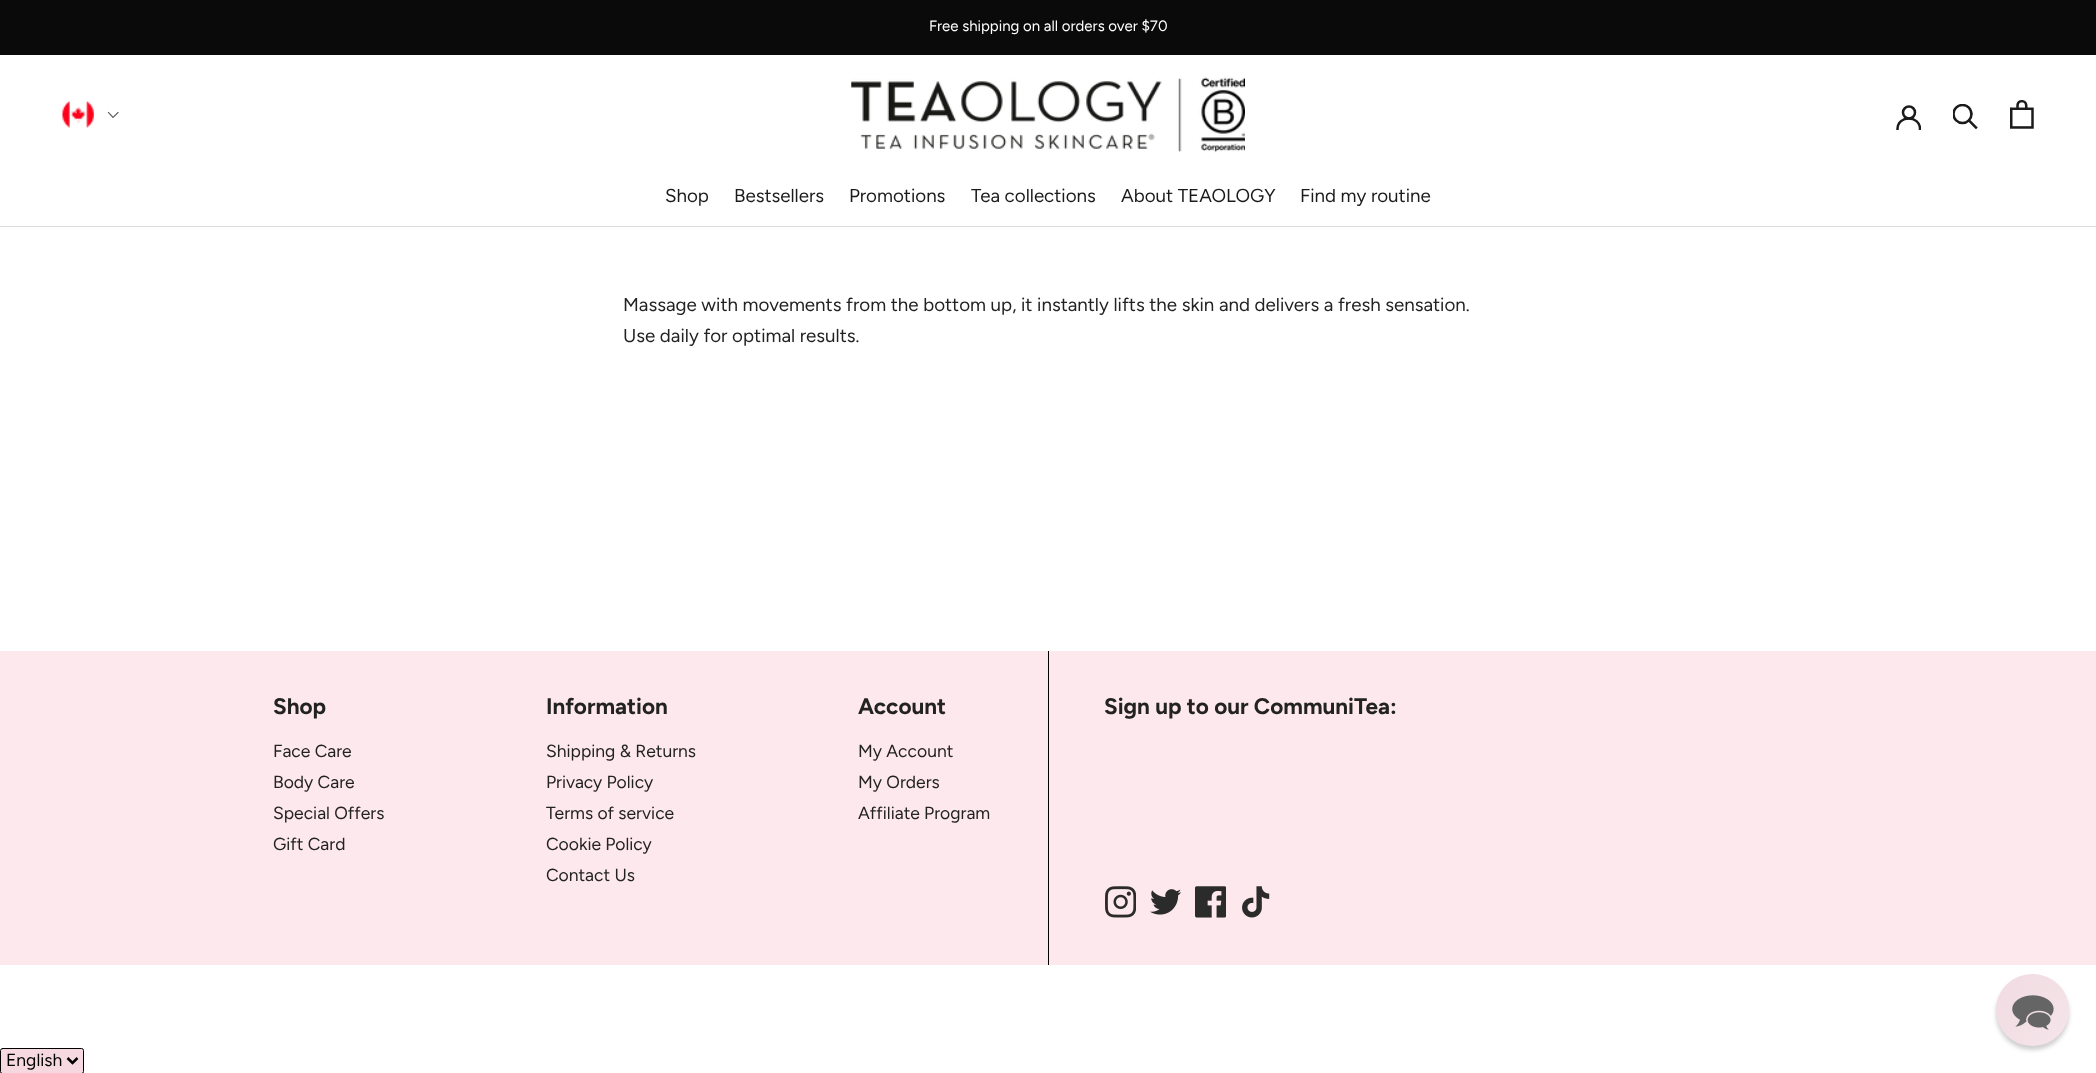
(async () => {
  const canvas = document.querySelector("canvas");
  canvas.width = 2096;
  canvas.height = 1073;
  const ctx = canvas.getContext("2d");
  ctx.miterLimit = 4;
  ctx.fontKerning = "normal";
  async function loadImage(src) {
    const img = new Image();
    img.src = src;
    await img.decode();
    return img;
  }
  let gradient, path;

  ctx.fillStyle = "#ffffff";
  ctx.fillRect(0, 0, 2096, 1073);
  ctx.fillStyle = "#0a0a0a";
  ctx.fillRect(0, 0, 2096, 55);
  ctx.fillStyle = "#dddddd";
  ctx.fillRect(0, 226, 2096, 1);
  ctx.drawImage(await loadImage("img/1.png"), 851, 77, 394, 76);
  ctx.save();
  ctx.beginPath();
  ctx.rect(1896, 105, 25, 25);
  ctx.clip();
  path = new Path2D("M1897.5 129C1897.5 115 1920 115 1920 129");
  ctx.strokeStyle = "#1c1b1b";
  ctx.lineWidth = 2.5;
  ctx.lineCap = "square";
  ctx.stroke(path);
  ctx.restore();
  ctx.beginPath();
  ctx.arc(1909, 112.5, 6, 0, Math.PI * 2);
  ctx.strokeStyle = "#1c1b1b";
  ctx.lineWidth = 2.5;
  ctx.stroke();
  path = new Path2D("M1976 127.5L1969 120.5");
  ctx.lineCap = "square";
  ctx.stroke(path);
  ctx.save();
  ctx.beginPath();
  ctx.rect(1953, 104, 26, 26);
  ctx.clip();
  ctx.beginPath();
  ctx.arc(1962.5, 114, 9, 0, Math.PI * 2);
  ctx.stroke();
  ctx.restore();
  ctx.drawImage(await loadImage("img/2.png"), 2010, 100, 24, 29);
  ctx.drawImage(await loadImage("img/3.png"), 62, 100, 32, 28);
  path = new Path2D("M118 112.5L113 117.5L108.5 112.5");
  ctx.strokeStyle = "#5e5e5e";
  ctx.lineWidth = 1.2;
  ctx.stroke(path);
  ctx.fillStyle = "#fce8ed";
  ctx.fillRect(0, 651, 2096, 314);
  ctx.fillStyle = "#000000";
  ctx.fillRect(1048, 651, 1, 314);
  ctx.drawImage(await loadImage("img/4.png"), 1105, 886, 31, 32);
  ctx.drawImage(await loadImage("img/5.png"), 1150, 889, 31, 26);
  ctx.drawImage(await loadImage("img/6.png"), 1195, 886, 31, 32);
  ctx.drawImage(await loadImage("img/7.png"), 1242, 886, 28, 32);
  ctx.fillStyle = "rgba(13, 13, 13, 0.2)";
  ctx.filter = "blur(2px)";
  ctx.beginPath();
  ctx.roundRect(1996, 978, 73, 72, 36);
  ctx.fill();
  ctx.filter = "none";
  gradient = ctx.createLinearGradient(1996, 974, 2069, 1046);
  gradient.addColorStop(0, "#f0dbe1");
  gradient.addColorStop(1, "#f5e5ea");
  ctx.fillStyle = gradient;
  ctx.beginPath();
  ctx.roundRect(1996, 974, 73, 72, 36);
  ctx.fill();
  ctx.drawImage(await loadImage("img/8.png"), 2012, 995, 42, 35);
  ctx.fillStyle = "#f6d9e0";
  ctx.beginPath();
  ctx.roundRect(0.5, 1048.5, 83, 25, 2);
  ctx.fill();
  ctx.strokeStyle = "#000000";
  ctx.lineWidth = 1;
  ctx.stroke();
  path = new Path2D("M67.5 1058L72.5 1063L77.5 1058");
  ctx.lineWidth = 2.5;
  ctx.lineCap = "butt";
  ctx.stroke(path);
  ctx.font = "15px Figtree";
  ctx.fillStyle = "#ffffff";
  ctx.fillText("Free shipping on all orders over $70", 929, 31);
  ctx.font = "18.75px Figtree";
  ctx.fillStyle = "#1c1b1b";
  for (const [text, x, y] of [
    ["Shop", 665, 202],
    ["Bestsellers", 734, 202],
    ["Promotions", 849, 202],
    ["Tea collections", 971, 202],
    ["About TEAOLOGY", 1121, 202],
    ["Find my routine", 1300, 202],
  ]) {
    ctx.fillText(text, x, y);
  }
  ctx.fillStyle = "#232222";
  ctx.fillText("Massage with movements from the bottom up, it instantly lifts the skin and delivers a fresh sensation.", 623, 311);
  ctx.fillText("Use daily for optimal results.", 623, 342);
  ctx.font = "bold 22.5px Figtree";
  ctx.fillText("Shop", 273, 714);
  ctx.font = "17.5px Figtree";
  for (const [text, x, y] of [
    ["Face Care", 273, 757],
    ["Body Care", 273, 788],
    ["Special Offers", 273, 819],
    ["Gift Card", 273, 850],
  ]) {
    ctx.fillText(text, x, y);
  }
  ctx.font = "bold 22.5px Figtree";
  ctx.fillText("Information", 546, 714);
  ctx.font = "17.5px Figtree";
  for (const [text, x, y] of [
    ["Shipping & Returns", 546, 757],
    ["Privacy Policy", 546, 788],
    ["Terms of service", 546, 819],
    ["Cookie Policy", 546, 850],
    ["Contact Us", 546, 881],
  ]) {
    ctx.fillText(text, x, y);
  }
  ctx.font = "bold 22.5px Figtree";
  ctx.fillText("Account", 858, 714);
  ctx.font = "17.5px Figtree";
  for (const [text, x, y] of [
    ["My Account", 858, 757],
    ["My Orders", 858, 788],
    ["Affiliate Program", 858, 819],
  ]) {
    ctx.fillText(text, x, y);
  }
  ctx.font = "bold 22.5px Figtree";
  ctx.fillText("Sign up to our CommuniTea:", 1104, 714);
  ctx.font = "17.5px Figtree";
  ctx.fillStyle = "#000000";
  ctx.fillText("English", 6, 1066);
})();
